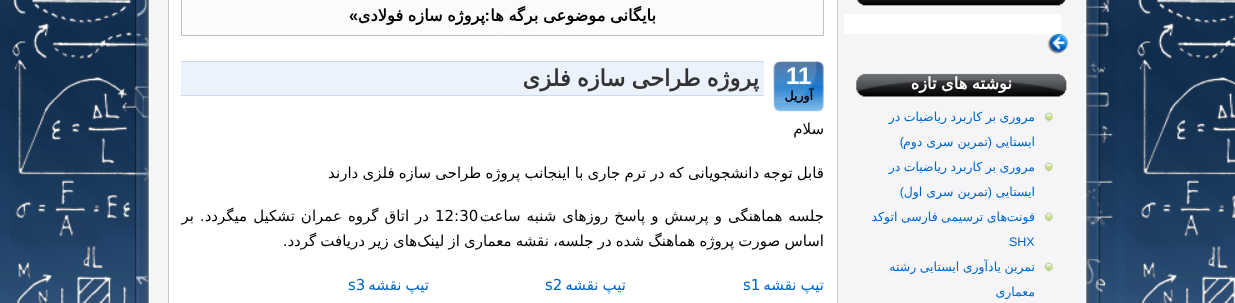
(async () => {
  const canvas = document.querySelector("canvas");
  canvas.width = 1235;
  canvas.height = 303;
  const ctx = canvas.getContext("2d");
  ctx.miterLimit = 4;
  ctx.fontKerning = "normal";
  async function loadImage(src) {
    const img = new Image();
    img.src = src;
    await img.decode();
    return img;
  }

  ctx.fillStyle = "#ffffff";
  ctx.fillRect(0, 0, 1235, 303);
  ctx.drawImage(await loadImage("img/1.png"), 0, 0, 1235, 303);
  ctx.drawImage(await loadImage("img/2.png"), 134, 0, 967, 303);
  ctx.drawImage(await loadImage("img/3.png"), 857, 0, 209, 6);
  ctx.fillRect(844, 14, 217, 20);
  ctx.drawImage(await loadImage("img/4.png"), 1047, 34, 21, 20);
  ctx.drawImage(await loadImage("img/5.png"), 856, 73, 211, 24);
  ctx.drawImage(await loadImage("img/6.png"), 1044, 112, 9, 10);
  ctx.drawImage(await loadImage("img/7.png"), 1044, 162, 9, 10);
  ctx.drawImage(await loadImage("img/8.png"), 1044, 212, 9, 10);
  ctx.drawImage(await loadImage("img/9.png"), 1044, 262, 9, 10);
  ctx.beginPath();
  ctx.rect(168.5, -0.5, 669, 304);
  ctx.fill();
  ctx.strokeStyle = "#cccaca";
  ctx.stroke();
  ctx.fillStyle = "#fafbfc";
  ctx.beginPath();
  ctx.rect(181.5, -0.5, 642, 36);
  ctx.fill();
  ctx.strokeStyle = "#c0c0c0";
  ctx.stroke();
  ctx.drawImage(await loadImage("img/10.png"), 773, 61, 51, 51);
  for (const [x, y, w, h, color] of [
    [181, 62, 583, 33, "#ebf2fb"],
    [181, 61, 583, 1, "#cadbef"],
    [181, 95, 583, 1, "#cadbef"],
  ]) {
    ctx.fillStyle = color;
    ctx.fillRect(x, y, w, h);
  }
  ctx.wordSpacing = "-0.6px";
  ctx.direction = "rtl";
  ctx.font = "bold 16.25px DejaVu Sans";
  ctx.fillStyle = "#ffffff";
  ctx.fillText("نوشته های تازه", 1012, 89);
  ctx.wordSpacing = "-0.5px";
  ctx.font = "12.5px DejaVu Sans";
  ctx.fillStyle = "#0066cc";
  ctx.fillText("مروری بر کاربرد ریاضیات در", 1035, 121);
  ctx.wordSpacing = "0px";
  ctx.fillText("ایستایی", 1035, 146);
  ctx.fillText("تمرین سری دوم", 988, 146);
  ctx.font = "12.5px Liberation Sans";
  ctx.fillText("(", 992, 146);
  ctx.fillText(")", 904, 146);
  ctx.wordSpacing = "-0.5px";
  ctx.font = "12.5px DejaVu Sans";
  ctx.fillText("مروری بر کاربرد ریاضیات در", 1035, 171);
  ctx.wordSpacing = "0px";
  ctx.fillText("ایستایی", 1035, 196);
  ctx.fillText("تمرین سری اول", 988, 196);
  ctx.font = "12.5px Liberation Sans";
  ctx.fillText("(", 992, 196);
  ctx.fillText(")", 904, 196);
  ctx.wordSpacing = "-0.5px";
  ctx.font = "12.5px DejaVu Sans";
  ctx.fillText("های ترسیمی فارسی اتوکد", 1007, 221);
  ctx.wordSpacing = "0px";
  ctx.fillText("فونت", 1035, 221);
  ctx.direction = "ltr";
  ctx.font = "12.5px Liberation Sans";
  ctx.fillText("SHX", 1009, 246);
  ctx.wordSpacing = "-0.5px";
  ctx.direction = "rtl";
  ctx.font = "12.5px DejaVu Sans";
  ctx.fillText("تمرین یادآوری ایستایی رشته", 1035, 271);
  ctx.wordSpacing = "0px";
  ctx.fillText("معماری", 1035, 296);
  ctx.wordSpacing = "-0.6px";
  ctx.font = "bold 16.25px DejaVu Sans";
  ctx.fillStyle = "#000000";
  ctx.fillText("بایگانی موضوعی برگه ها", 656, 21);
  ctx.wordSpacing = "0px";
  ctx.font = "bold 16.25px Liberation Sans";
  ctx.fillText(":", 490, 21);
  ctx.wordSpacing = "-0.6px";
  ctx.font = "bold 16.25px DejaVu Sans";
  ctx.fillText("پروژه سازه فولادی", 485, 21);
  ctx.wordSpacing = "0px";
  ctx.font = "bold 16.25px Liberation Sans";
  ctx.fillText("»", 358, 21);
  ctx.direction = "ltr";
  ctx.font = "bold 24px Liberation Sans";
  ctx.fillStyle = "#ffffff";
  ctx.fillText("11", 786, 84);
  ctx.direction = "rtl";
  ctx.font = "bold 12.5px DejaVu Sans";
  ctx.fillStyle = "#000000";
  ctx.fillText("آوریل", 813, 100);
  ctx.wordSpacing = "-1px";
  ctx.font = "bold 22.5px DejaVu Sans";
  ctx.fillStyle = "#333333";
  ctx.fillText("پروژه طراحی سازه فلزی", 759, 86);
  ctx.wordSpacing = "0px";
  ctx.font = "15px DejaVu Sans";
  ctx.fillStyle = "#000000";
  ctx.fillText("سلام", 824, 134);
  ctx.wordSpacing = "-0.6px";
  ctx.fillText("قابل توجه دانشجویانی که در ترم جاری با اینجانب پروژه طراحی سازه فلزی دارند", 824, 178);
  ctx.wordSpacing = "1.25px";
  ctx.fillText("جلسه هماهنگی و پرسش و پاسخ روزهای شنبه ساعت", 824, 221);
  ctx.wordSpacing = "0px";
  ctx.direction = "ltr";
  ctx.fillText("12:30", 435, 221);
  ctx.wordSpacing = "1.25px";
  ctx.direction = "rtl";
  ctx.fillText("در اتاق گروه عمران تشکیل میگردد. بر", 429, 221);
  ctx.wordSpacing = "-0.6px";
  ctx.fillText("اساس صورت پروژه هماهنگ شده در جلسه، نقشه معماری از لینک‌های زیر دریافت گردد.", 824, 246);
  ctx.fillStyle = "#0066cc";
  ctx.fillText("تیپ نقشه", 824, 290);
  ctx.wordSpacing = "0px";
  ctx.direction = "ltr";
  ctx.fillText("s1", 743, 290);
  ctx.wordSpacing = "-0.6px";
  ctx.direction = "rtl";
  ctx.fillText("تیپ نقشه", 626, 290);
  ctx.wordSpacing = "0px";
  ctx.direction = "ltr";
  ctx.fillText("s2", 545, 290);
  ctx.wordSpacing = "-0.6px";
  ctx.direction = "rtl";
  ctx.fillText("تیپ نقشه", 429, 290);
  ctx.wordSpacing = "0px";
  ctx.direction = "ltr";
  ctx.fillText("s3", 348, 290);
})();
